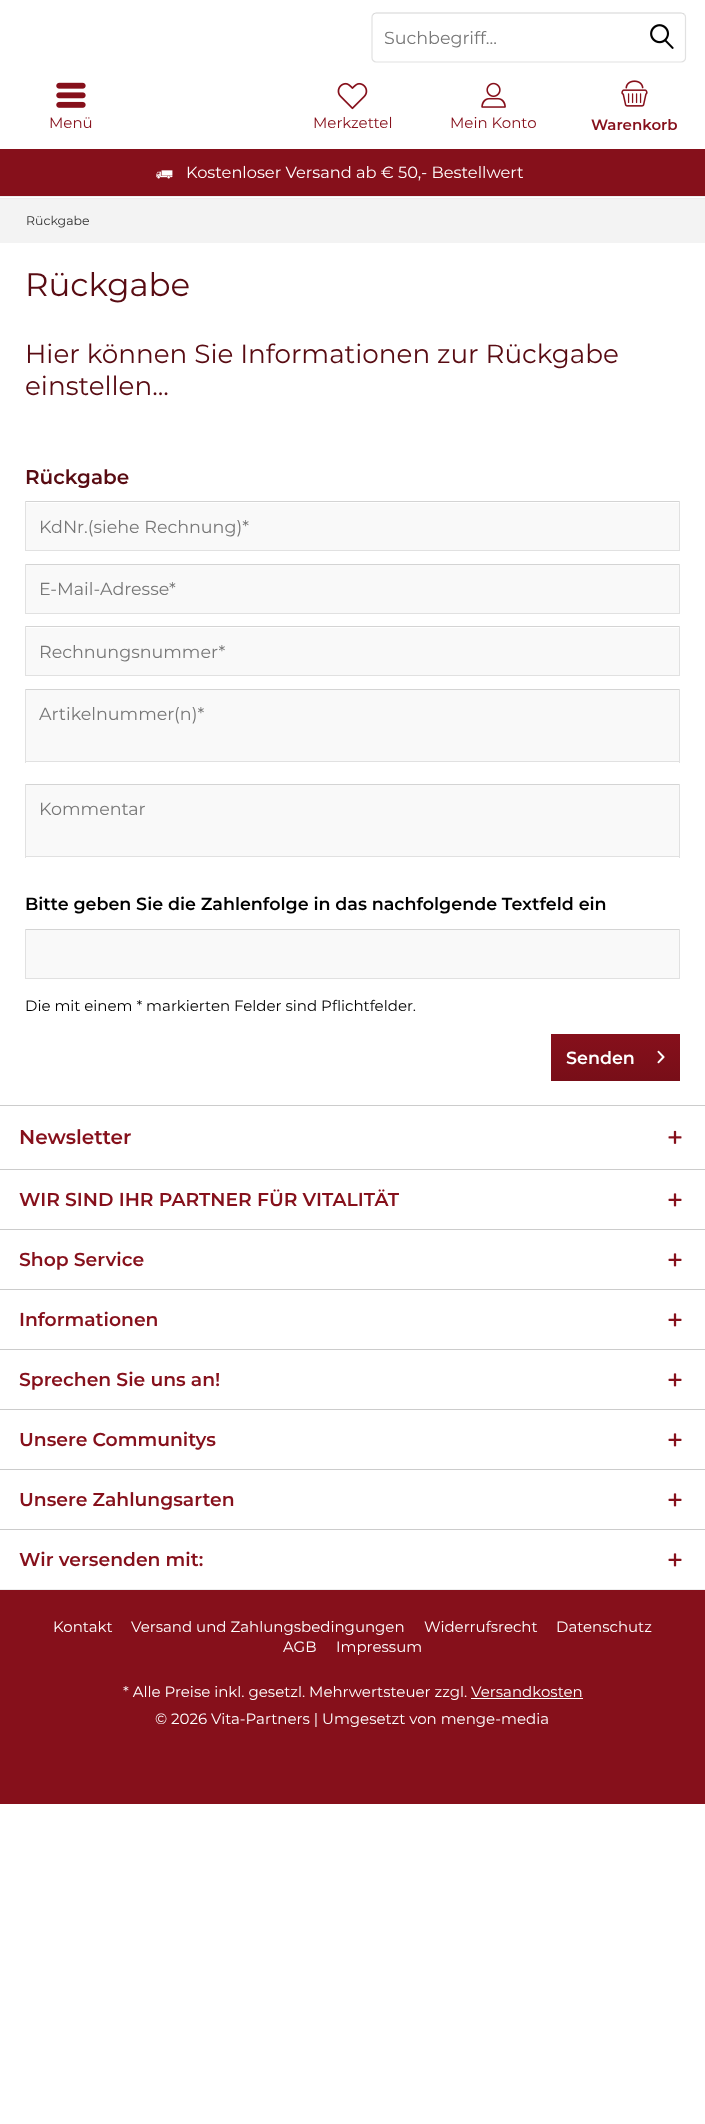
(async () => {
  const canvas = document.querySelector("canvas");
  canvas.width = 705;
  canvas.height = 2124;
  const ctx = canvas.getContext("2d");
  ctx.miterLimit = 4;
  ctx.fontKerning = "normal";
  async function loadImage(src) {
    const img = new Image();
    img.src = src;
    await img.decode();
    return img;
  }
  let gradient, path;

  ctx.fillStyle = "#ffffff";
  ctx.fillRect(0, 0, 705, 2124);
  ctx.fillStyle = "#eeeeee";
  ctx.fillRect(0, 196, 705, 1);
  path = new Path2D("M373 14.5C374 13.5 375 13 376 13H681C682.5 13 683.5 13.5 684.5 14.5");
  ctx.strokeStyle = "#d4d4d4";
  ctx.lineWidth = 1.2;
  ctx.stroke(path);
  path = new Path2D("M684.5 14.5C685 15 685.5 16.5 685.5 17.5V57.5C685.5 58.5 685 60 684.5 60.5C683.5 61.5 682.5 62 681 62H376C375 62 374 61.5 373 60.5C372.5 60 372 58.5 372 57.5V17.5C372 16.5 372.5 15 373 14.5");
  ctx.strokeStyle = "#e1e1e1";
  ctx.stroke(path);
  ctx.drawImage(await loadImage("img/1.png"), 650, 24, 24, 25);
  ctx.drawImage(await loadImage("img/2.png"), 56, 82, 30, 26);
  ctx.drawImage(await loadImage("img/3.png"), 337, 82, 31, 28);
  ctx.drawImage(await loadImage("img/4.png"), 481, 82, 25, 26);
  ctx.drawImage(await loadImage("img/5.png"), 621, 80, 27, 27);
  ctx.fillStyle = "#86101b";
  ctx.fillRect(0, 149, 705, 47);
  ctx.drawImage(await loadImage("img/6.png"), 156, 170, 17, 9);
  for (const [x, y, w, h, color] of [
    [0, 199, 705, 44, "#f3f3f3"],
    [0, 198, 705, 1, "#eeeeee"],
    [26, 503, 653, 47, "#f9f9f9"],
    [25, 501, 655, 1, "#d4d4d4"],
    [679, 501, 1, 50, "#e1e1e1"],
    [25, 550, 655, 1, "#e1e1e1"],
    [25, 501, 1, 50, "#e1e1e1"],
    [26, 565, 653, 48, "#f9f9f9"],
    [25, 564, 655, 1, "#d4d4d4"],
    [679, 564, 1, 50, "#e1e1e1"],
    [25, 613, 655, 1, "#e1e1e1"],
    [25, 564, 1, 50, "#e1e1e1"],
    [26, 628, 653, 47, "#f9f9f9"],
    [25, 626, 655, 1, "#d4d4d4"],
    [679, 626, 1, 50, "#e1e1e1"],
    [25, 675, 655, 1, "#e1e1e1"],
    [25, 626, 1, 50, "#e1e1e1"],
    [26, 690, 653, 71, "#f9f9f9"],
    [25, 689, 655, 1, "#d4d4d4"],
    [679, 689, 1, 74, "#e1e1e1"],
    [25, 761, 655, 1, "#e1e1e1"],
    [25, 689, 1, 74, "#e1e1e1"],
    [26, 785, 653, 71, "#f9f9f9"],
    [25, 784, 655, 1, "#d4d4d4"],
    [679, 784, 1, 74, "#e1e1e1"],
    [25, 856, 655, 1, "#e1e1e1"],
    [25, 784, 1, 74, "#e1e1e1"],
    [26, 930, 653, 48, "#f9f9f9"],
    [25, 929, 655, 1, "#d4d4d4"],
    [679, 929, 1, 50, "#e1e1e1"],
    [25, 978, 655, 1, "#e1e1e1"],
    [25, 929, 1, 50, "#e1e1e1"],
  ]) {
    ctx.fillStyle = color;
    ctx.fillRect(x, y, w, h);
  }
  gradient = ctx.createLinearGradient(616, 1034, 616, 1081);
  gradient.addColorStop(0, "#86101b");
  gradient.addColorStop(1, "#780e18");
  ctx.fillStyle = gradient;
  ctx.fillRect(551, 1034, 129, 47);
  ctx.drawImage(await loadImage("img/7.png"), 657, 1050, 8, 14);
  ctx.fillStyle = "#cccccc";
  ctx.fillRect(0, 1105, 705, 1);
  ctx.drawImage(await loadImage("img/8.png"), 668, 1130, 14, 14);
  ctx.fillRect(0, 1169, 705, 1);
  ctx.drawImage(await loadImage("img/9.png"), 668, 1193, 14, 14);
  ctx.fillRect(0, 1229, 705, 1);
  ctx.drawImage(await loadImage("img/9.png"), 668, 1253, 14, 14);
  ctx.fillRect(0, 1289, 705, 1);
  ctx.drawImage(await loadImage("img/9.png"), 668, 1313, 14, 14);
  ctx.fillRect(0, 1349, 705, 1);
  ctx.drawImage(await loadImage("img/9.png"), 668, 1373, 14, 14);
  ctx.fillRect(0, 1409, 705, 1);
  ctx.drawImage(await loadImage("img/9.png"), 668, 1433, 14, 14);
  ctx.fillRect(0, 1469, 705, 1);
  ctx.drawImage(await loadImage("img/9.png"), 668, 1493, 14, 14);
  ctx.fillRect(0, 1529, 705, 1);
  ctx.drawImage(await loadImage("img/9.png"), 668, 1553, 14, 14);
  for (const [x, y, w, h, color] of [
    [0, 1590, 705, 214, "#86101b"],
    [0, 1589, 705, 1, "#eeeeee"],
    [471, 1698, 112, 1, "#ffffff"],
  ]) {
    ctx.fillStyle = color;
    ctx.fillRect(x, y, w, h);
  }
  ctx.font = "17.5px Montserrat";
  ctx.fillStyle = "#777777";
  ctx.fillText("Suchbegriff...", 384, 44);
  ctx.font = "15px Montserrat";
  ctx.fillStyle = "#86101b";
  for (const [text, x, y] of [
    ["Menü", 49, 128],
    ["Merkzettel", 313, 128],
    ["Mein Konto", 450, 128],
  ]) {
    ctx.fillText(text, x, y);
  }
  ctx.font = "600 15px Montserrat";
  ctx.fillText("Warenkorb", 591, 130);
  ctx.font = "16.25px Montserrat";
  ctx.fillStyle = "#ffffff";
  ctx.fillText("Kostenloser Versand ab € 50,- Bestellwert", 186, 178);
  ctx.font = "12.5px Montserrat";
  ctx.fillStyle = "#333333";
  ctx.fillText("Rückgabe", 26, 225);
  ctx.font = "32.5px Montserrat";
  ctx.fillStyle = "#580b12";
  ctx.fillText("Rückgabe", 25, 296);
  ctx.font = "26.25px Montserrat";
  ctx.fillText("Hier können Sie Informationen zur Rückgabe", 25, 363);
  ctx.fillText("einstellen...", 25, 395);
  ctx.font = "600 20px Montserrat";
  ctx.fillText("Rückgabe", 25, 484);
  ctx.font = "17.5px Montserrat";
  ctx.fillStyle = "#777777";
  for (const [text, x, y] of [
    ["KdNr.(siehe Rechnung)*", 39, 533],
    ["E-Mail-Adresse*", 39, 595],
    ["Rechnungsnummer*", 39, 658],
    ["Artikelnummer(n)*", 39, 720],
    ["Kommentar", 39, 815],
  ]) {
    ctx.fillText(text, x, y);
  }
  ctx.font = "600 17.5px Montserrat";
  ctx.fillStyle = "#000000";
  ctx.fillText("Bitte geben Sie die Zahlenfolge in das nachfolgende Textfeld ein", 25, 910);
  ctx.font = "15px Montserrat";
  ctx.fillText("Die mit einem * markierten Felder sind Pflichtfelder.", 25, 1011);
  ctx.font = "600 17.5px Montserrat";
  ctx.fillStyle = "#ffffff";
  ctx.fillText("Senden", 566, 1064);
  ctx.font = "600 20px Montserrat";
  ctx.fillStyle = "#86101b";
  ctx.fillText("Newsletter", 19, 1144);
  ctx.font = "600 18.75px Montserrat";
  for (const [text, x, y] of [
    ["WIR SIND IHR PARTNER FÜR VITALITÄT", 19, 1206],
    ["Shop Service", 19, 1266],
    ["Informationen", 19, 1326],
    ["Sprechen Sie uns an!", 19, 1386],
    ["Unsere Communitys", 19, 1446],
    ["Unsere Zahlungsarten", 19, 1506],
    ["Wir versenden mit:", 19, 1566],
  ]) {
    ctx.fillText(text, x, y);
  }
  ctx.font = "15px Montserrat";
  ctx.fillStyle = "#ffffff";
  for (const [text, x, y] of [
    ["Kontakt", 53, 1632],
    ["Versand und Zahlungsbedingungen", 131, 1632],
    ["Widerrufsrecht", 424, 1632],
    ["Datenschutz", 556, 1632],
    ["AGB", 283, 1652],
    ["Impressum", 336, 1652],
    ["* Alle Preise inkl. gesetzl. Mehrwertsteuer zzgl. Versandkosten", 123, 1697],
    ["© 2026 Vita-Partners | Umgesetzt von menge-media", 155, 1724],
  ]) {
    ctx.fillText(text, x, y);
  }
})();
